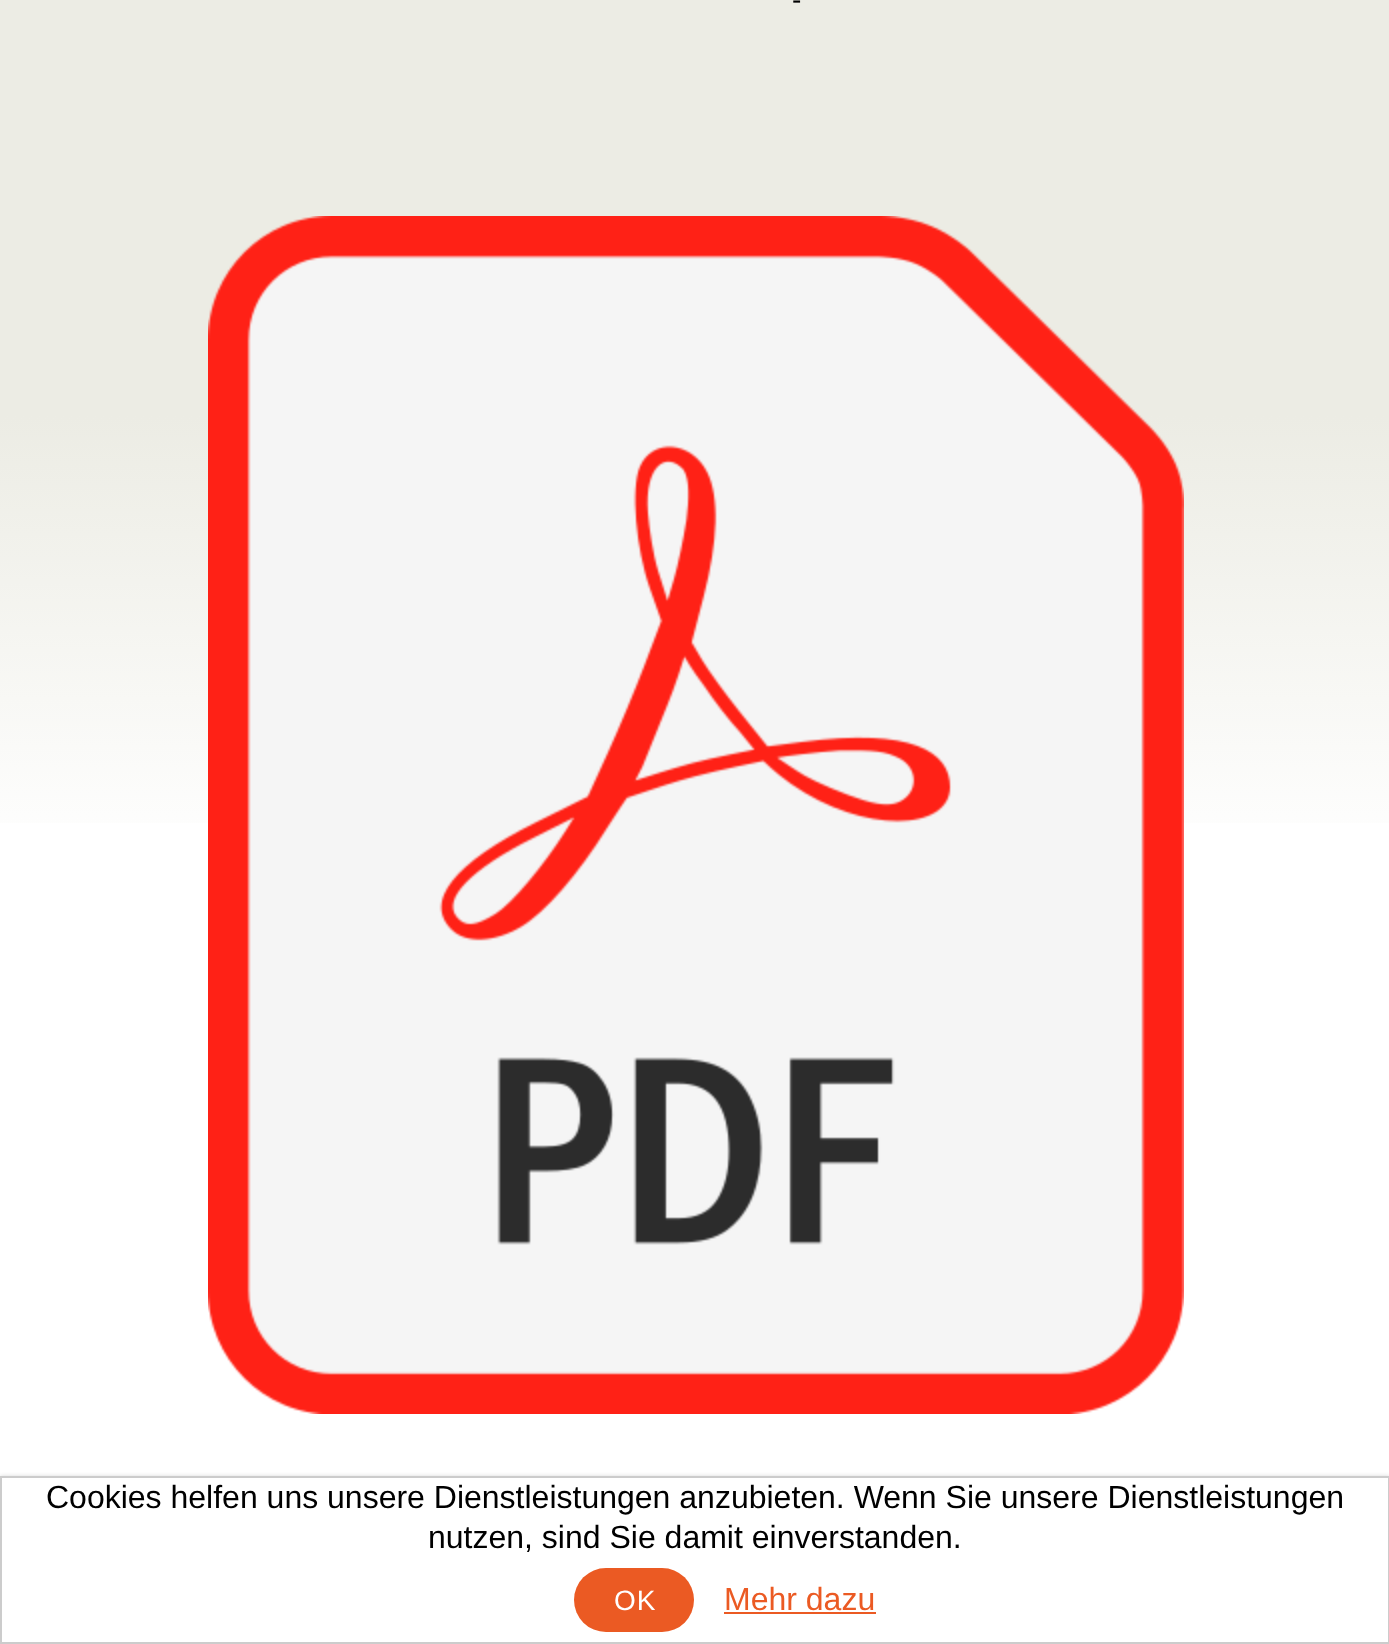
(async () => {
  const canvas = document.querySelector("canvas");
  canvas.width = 1389;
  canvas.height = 1644;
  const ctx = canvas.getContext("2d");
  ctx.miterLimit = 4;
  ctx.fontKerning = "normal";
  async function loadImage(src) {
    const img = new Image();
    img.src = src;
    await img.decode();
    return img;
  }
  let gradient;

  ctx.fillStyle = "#ffffff";
  ctx.fillRect(0, 0, 1389, 1644);
  gradient = ctx.createLinearGradient(695, -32, 695, 864);
  gradient.addColorStop(0, "#ecece4");
  gradient.addColorStop(0.5, "#ecece4");
  gradient.addColorStop(1, "#ffffff");
  ctx.fillStyle = gradient;
  ctx.fillRect(0, 0, 1389, 823);
  ctx.drawImage(await loadImage("img/1.png"), 208, 216, 976, 1198);
  ctx.fillStyle = "rgba(0, 0, 0, 0.15)";
  ctx.filter = "blur(2px)";
  ctx.beginPath();
  ctx.rect(0, 1476, 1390, 168);
  ctx.fill();
  ctx.filter = "none";
  ctx.fillStyle = "#ffffff";
  ctx.beginPath();
  ctx.rect(1, 1477, 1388, 166);
  ctx.fill();
  ctx.strokeStyle = "#cccccc";
  ctx.lineWidth = 2;
  ctx.stroke();
  ctx.fillStyle = "#eb5a23";
  ctx.beginPath();
  ctx.roundRect(574, 1568, 120, 64, 32);
  ctx.fill();
  ctx.fillRect(724, 1612, 152, 2);
  ctx.font = "28px Liberation Sans";
  ctx.fillStyle = "#000000";
  ctx.fillText("-", 792, 9);
  ctx.font = "32px Liberation Sans";
  ctx.fillText("Cookies helfen uns unsere Dienstleistungen anzubieten. Wenn Sie unsere Dienstleistungen", 46, 1508);
  ctx.fillText("nutzen, sind Sie damit einverstanden.", 428, 1548);
  ctx.letterSpacing = "1px";
  ctx.font = "28px Liberation Sans";
  ctx.fillStyle = "#ffffff";
  ctx.fillText("OK", 614, 1610);
  ctx.letterSpacing = "0px";
  ctx.font = "32px Liberation Sans";
  ctx.fillStyle = "#eb5a23";
  ctx.fillText("Mehr dazu", 724, 1610);
})();
